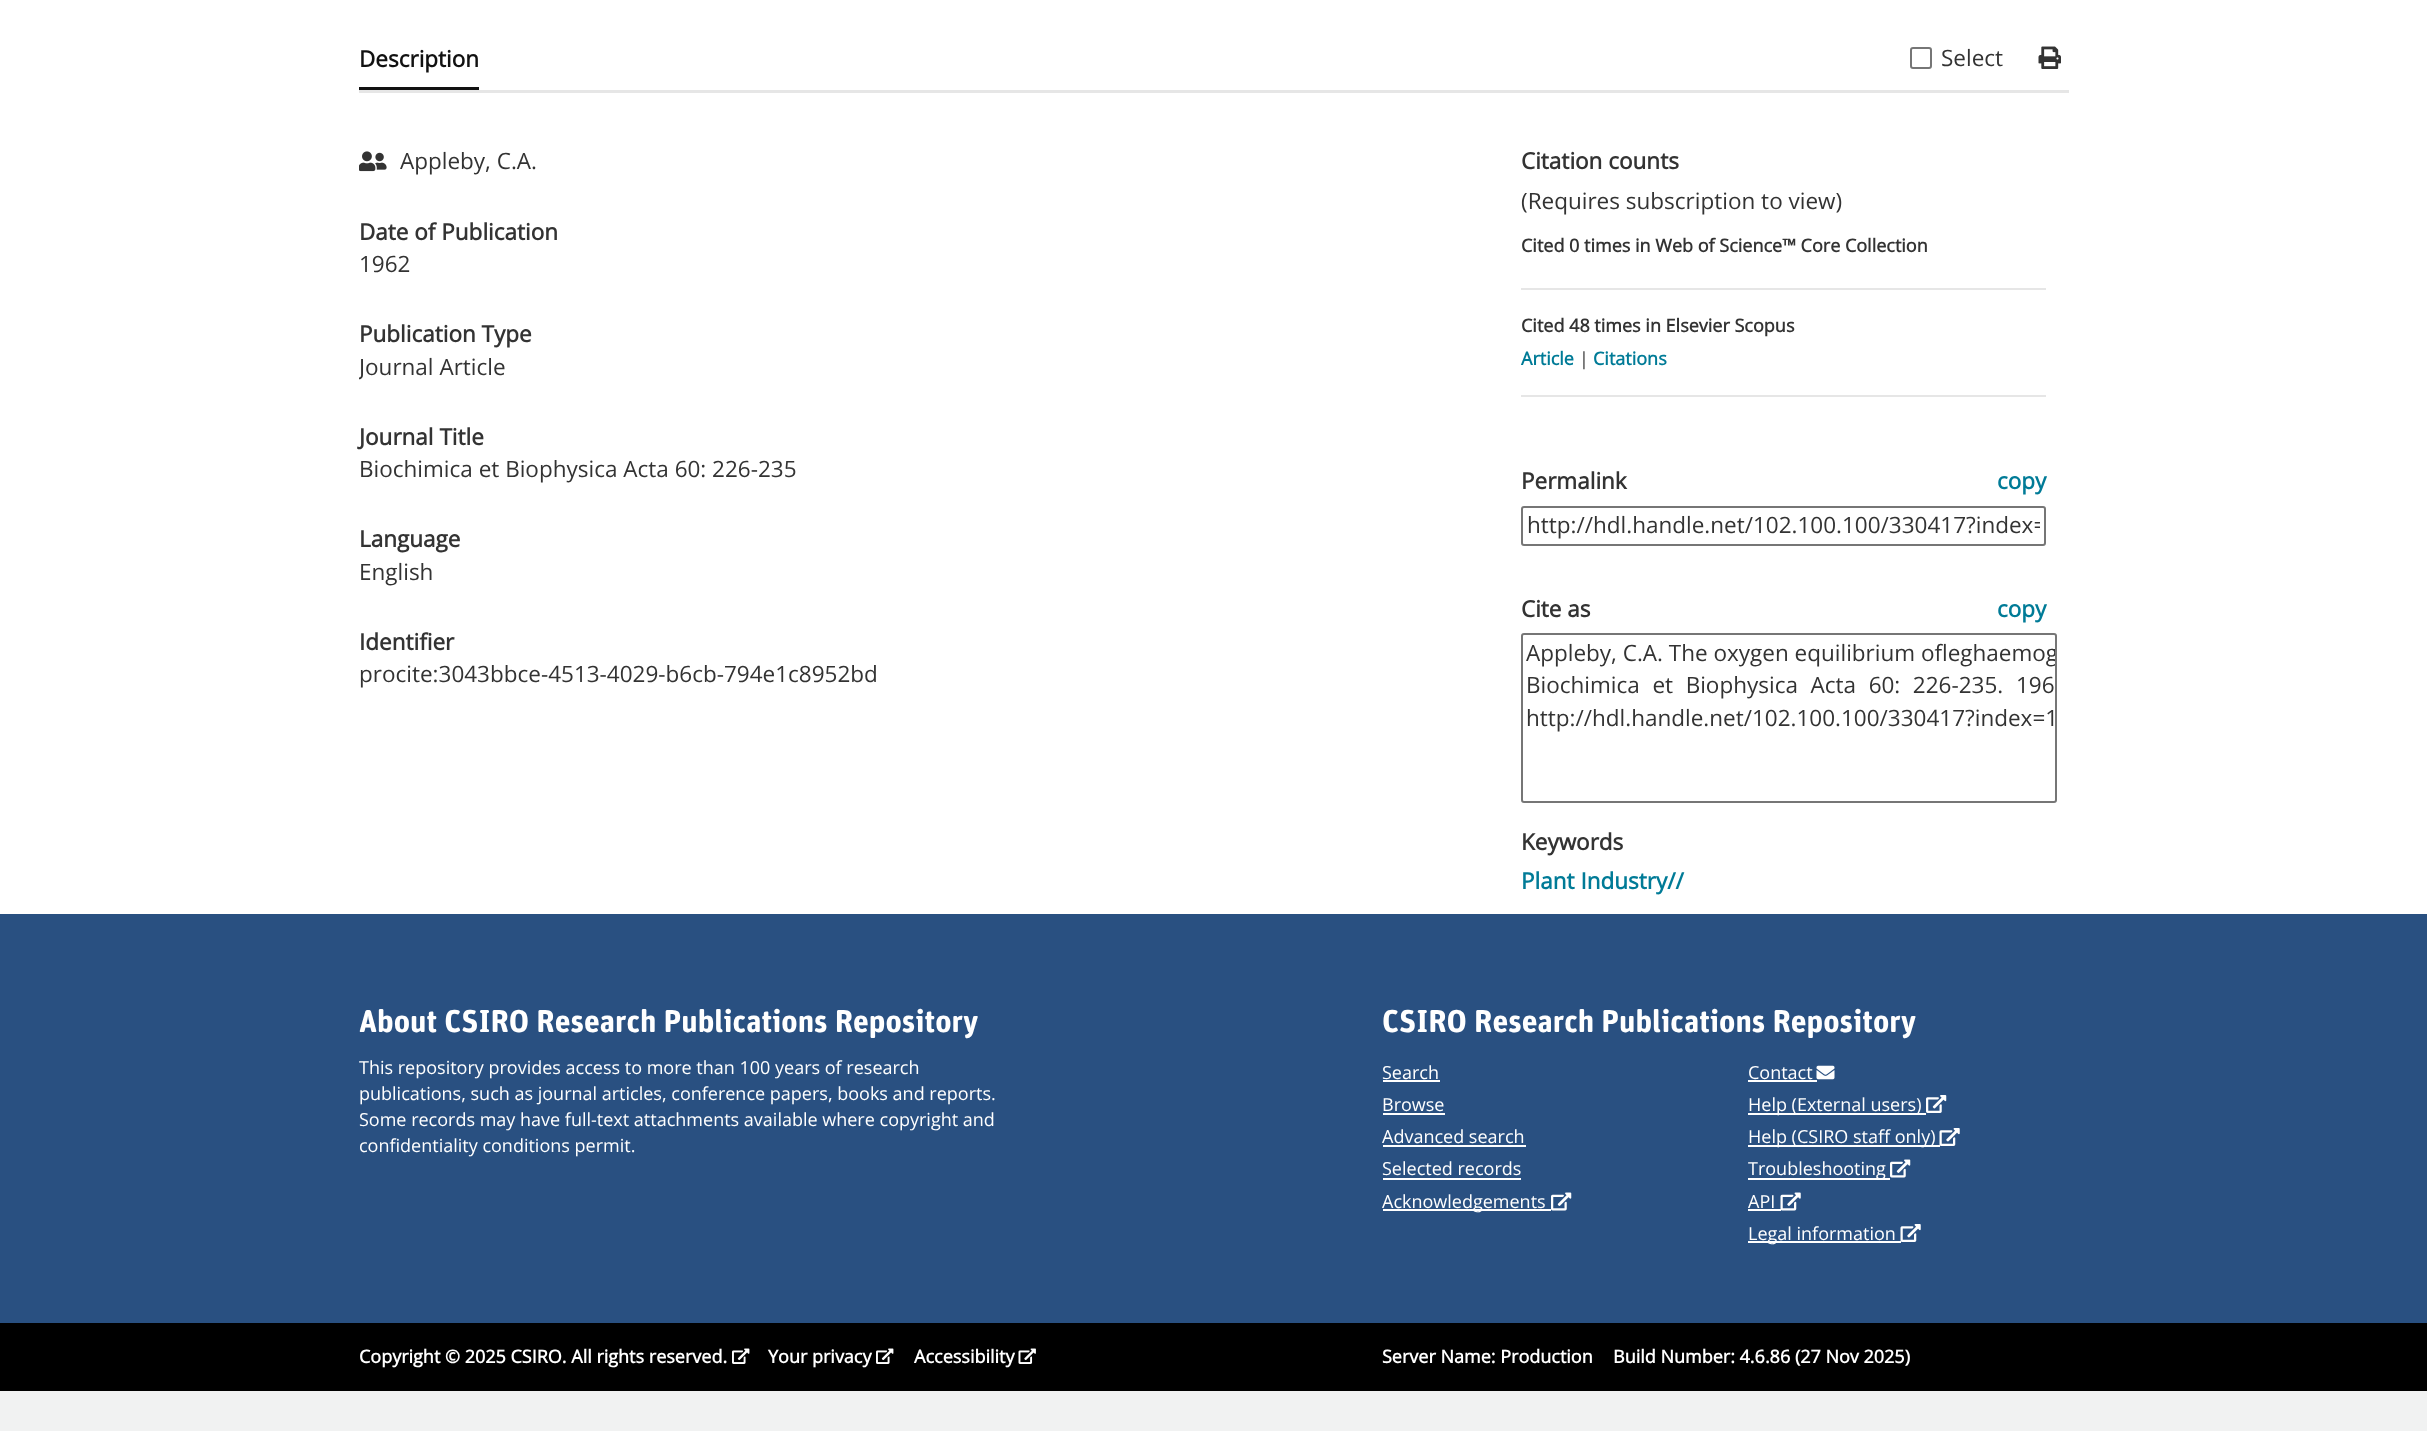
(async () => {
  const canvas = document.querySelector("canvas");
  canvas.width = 2427;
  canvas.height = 1431;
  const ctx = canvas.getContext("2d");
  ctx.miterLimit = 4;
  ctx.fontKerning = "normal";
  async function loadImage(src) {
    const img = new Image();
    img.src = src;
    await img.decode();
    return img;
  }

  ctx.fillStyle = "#ffffff";
  ctx.fillRect(0, 0, 2427, 1431);
  ctx.fillStyle = "#111111";
  ctx.fillRect(359, 87, 120, 3);
  ctx.beginPath();
  ctx.roundRect(1911, 48, 20, 20, 2);
  ctx.strokeStyle = "#767676";
  ctx.lineWidth = 2;
  ctx.stroke();
  ctx.drawImage(await loadImage("img/1.png"), 2038, 46, 23, 23);
  ctx.fillStyle = "#e6e6e6";
  ctx.fillRect(359, 90, 1710, 3);
  ctx.drawImage(await loadImage("img/2.png"), 359, 151, 28, 21);
  ctx.fillRect(1521, 288, 525, 2);
  ctx.fillRect(1521, 395, 525, 2);
  ctx.beginPath();
  ctx.roundRect(1522, 507, 523, 38, 2);
  ctx.stroke();
  ctx.beginPath();
  ctx.roundRect(1522, 634, 534, 168, 2);
  ctx.stroke();
  for (const [x, y, w, h, color] of [
    [0, 914, 2427, 409, "#295081"],
    [1383, 1080, 57, 2, "#ffffff"],
    [1383, 1113, 62, 2, "#ffffff"],
    [1383, 1145, 143, 2, "#ffffff"],
    [1383, 1178, 138, 2, "#ffffff"],
    [1383, 1209, 168, 2, "#ffffff"],
  ]) {
    ctx.fillStyle = color;
    ctx.fillRect(x, y, w, h);
  }
  ctx.drawImage(await loadImage("img/3.png"), 1551, 1192, 21, 19);
  ctx.fillRect(1748, 1080, 69, 2);
  ctx.drawImage(await loadImage("img/4.png"), 1816, 1065, 19, 15);
  ctx.fillRect(1748, 1113, 178, 2);
  ctx.drawImage(await loadImage("img/5.png"), 1926, 1095, 21, 18);
  ctx.fillRect(1748, 1145, 192, 2);
  ctx.drawImage(await loadImage("img/6.png"), 1939, 1128, 21, 18);
  ctx.fillRect(1748, 1178, 142, 2);
  ctx.drawImage(await loadImage("img/3.png"), 1890, 1159, 21, 19);
  ctx.fillRect(1748, 1209, 33, 2);
  ctx.drawImage(await loadImage("img/7.png"), 1780, 1192, 21, 19);
  ctx.fillRect(1748, 1241, 153, 2);
  ctx.drawImage(await loadImage("img/6.png"), 1900, 1224, 21, 18);
  ctx.fillStyle = "#000000";
  ctx.fillRect(0, 1323, 2427, 68);
  ctx.drawImage(await loadImage("img/8.png"), 732, 1348, 18, 16);
  ctx.drawImage(await loadImage("img/8.png"), 876, 1348, 18, 16);
  ctx.drawImage(await loadImage("img/9.png"), 1018, 1348, 18, 16);
  ctx.fillStyle = "#f1f2f2";
  ctx.fillRect(0, 1391, 2427, 40);
  ctx.font = "bold 22.5px Open Sans";
  ctx.fillStyle = "#111111";
  ctx.fillText("Description", 359, 67);
  ctx.font = "22.5px Open Sans";
  ctx.fillStyle = "#333333";
  ctx.fillText("Select", 1941, 66);
  ctx.fillText("Appleby, C.A.", 400, 169);
  ctx.font = "bold 22.5px Open Sans";
  ctx.fillText("Date of Publication", 359, 240);
  ctx.font = "22.5px Open Sans";
  ctx.fillText("1962", 359, 272);
  ctx.font = "bold 22.5px Open Sans";
  ctx.fillText("Publication Type", 359, 342);
  ctx.save();
  ctx.beginPath();
  ctx.rect(359, 351, 1128, 48);
  ctx.clip();
  ctx.font = "22.5px Open Sans";
  ctx.fillText("Journal Article", 359, 375);
  ctx.restore();
  ctx.fillText("Journal Title", 359, 445);
  ctx.font = "22.5px Open Sans";
  ctx.fillText("Biochimica et Biophysica Acta 60: 226-235", 359, 477);
  ctx.font = "bold 22.5px Open Sans";
  ctx.fillText("Language", 359, 547);
  ctx.font = "22.5px Open Sans";
  ctx.fillText("English", 359, 580);
  ctx.font = "bold 22.5px Open Sans";
  ctx.fillText("Identifier", 359, 650);
  ctx.font = "22.5px Open Sans";
  ctx.fillText("procite:3043bbce-4513-4029-b6cb-794e1c8952bd", 359, 682);
  ctx.font = "bold 22.5px Open Sans";
  ctx.fillText("Citation counts", 1521, 169);
  ctx.font = "22.5px Open Sans";
  ctx.fillText("(Requires subscription to view)", 1521, 209);
  ctx.font = "bold 18px Open Sans";
  ctx.fillText("Cited 0 times in Web of Science™ Core Collection", 1521, 252);
  ctx.fillText("Cited 48 times in Elsevier Scopus", 1521, 332);
  ctx.fillStyle = "#007b97";
  ctx.fillText("Article", 1521, 365);
  ctx.font = "18px Open Sans";
  ctx.fillStyle = "#333333";
  ctx.fillText("|", 1579, 365);
  ctx.font = "bold 18px Open Sans";
  ctx.fillStyle = "#007b97";
  ctx.fillText("Citations", 1593, 365);
  ctx.font = "bold 22.5px Open Sans";
  ctx.fillStyle = "#333333";
  ctx.fillText("Permalink", 1521, 489);
  ctx.fillStyle = "#007b97";
  ctx.fillText("copy", 1997, 489);
  ctx.save();
  ctx.beginPath();
  ctx.rect(1527, 510, 513, 32);
  ctx.clip();
  ctx.font = "22.5px Open Sans";
  ctx.fillStyle = "#333333";
  ctx.fillText("http://hdl.handle.net/102.100.100/330417?index=", 1527, 533);
  ctx.restore();
  ctx.fillStyle = "#333333";
  ctx.fillText("Cite as", 1521, 617);
  ctx.fillStyle = "#007b97";
  ctx.fillText("copy", 1997, 617);
  ctx.font = "22.5px Open Sans";
  ctx.fillStyle = "#333333";
  ctx.fillText("Appleby, C.A. The oxygen equilibrium of", 1526, 661);
  ctx.save();
  ctx.beginPath();
  ctx.rect(1523, 635, 532, 166);
  ctx.clip();
  ctx.fillText("leghaemog", 1942, 661);
  ctx.restore();
  ctx.wordSpacing = "6.75px";
  ctx.fillText("Biochimica et Biophysica Acta 60: 226-235.", 1526, 693);
  ctx.wordSpacing = "0px";
  ctx.fillText("196", 2016, 693);
  ctx.fillText("http://hdl.handle.net/102.100.100/330417?index=1", 1526, 726);
  ctx.font = "bold 22.5px Open Sans";
  ctx.fillText("Keywords", 1521, 850);
  ctx.fillStyle = "#007b97";
  ctx.fillText("Plant Industry//", 1521, 889);
  ctx.font = "bold 31.5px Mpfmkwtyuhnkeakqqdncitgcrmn";
  ctx.fillStyle = "#ffffff";
  ctx.fillText("About CSIRO Research Publications Repository", 359, 1032);
  ctx.font = "18px Open Sans";
  for (const [text, x, y] of [
    ["This repository provides access to more than 100 years of research", 359, 1074],
    ["publications, such as journal articles, conference papers, books and reports.", 359, 1100],
    ["Some records may have full-text attachments available where copyright and", 359, 1126],
    ["confidentiality conditions permit.", 359, 1152],
  ]) {
    ctx.fillText(text, x, y);
  }
  ctx.font = "bold 31.5px Mpfmkwtyuhnkeakqqdncitgcrmn";
  ctx.fillText("CSIRO Research Publications Repository", 1382, 1032);
  ctx.font = "18px Open Sans";
  for (const [text, x, y] of [
    ["Search", 1382, 1079],
    ["Browse", 1382, 1111],
    ["Advanced search", 1382, 1143],
    ["Selected records", 1382, 1175],
    ["Acknowledgements", 1382, 1208],
    ["Contact", 1748, 1079],
    ["Help (External users)", 1748, 1111],
    ["Help (CSIRO staff only)", 1748, 1143],
    ["Troubleshooting", 1748, 1175],
    ["API", 1748, 1208],
    ["Legal information", 1748, 1240],
  ]) {
    ctx.fillText(text, x, y);
  }
  ctx.font = "bold 18px Open Sans";
  for (const [text, x, y] of [
    ["Copyright © 2025 CSIRO. All rights reserved.", 359, 1363],
    ["Your privacy", 768, 1363],
    ["Accessibility", 914, 1363],
    ["Server Name: Production", 1382, 1363],
    ["Build Number: 4.6.86 (27 Nov 2025)", 1613, 1363],
  ]) {
    ctx.fillText(text, x, y);
  }
})();
